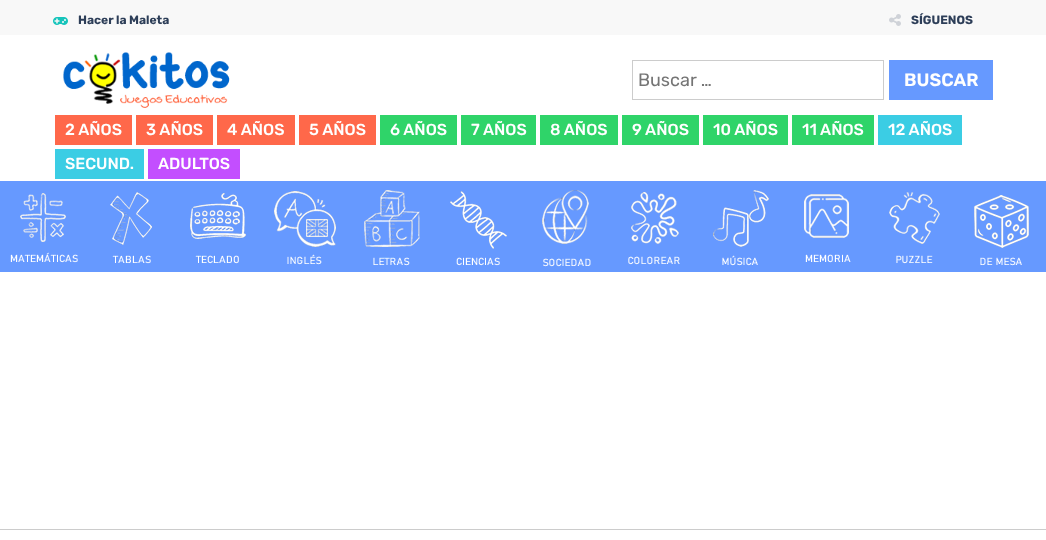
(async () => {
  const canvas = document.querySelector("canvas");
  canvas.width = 1046;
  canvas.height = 540;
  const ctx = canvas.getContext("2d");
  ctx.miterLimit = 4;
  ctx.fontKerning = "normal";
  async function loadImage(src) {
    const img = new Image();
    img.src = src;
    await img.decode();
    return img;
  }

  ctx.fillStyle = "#ffffff";
  ctx.fillRect(0, 0, 1046, 540);
  ctx.fillStyle = "#f8f8f8";
  ctx.fillRect(0, 0, 1046, 35);
  ctx.drawImage(await loadImage("img/1.png"), 53, 17, 15, 8);
  ctx.drawImage(await loadImage("img/2.png"), 889, 14, 12, 12);
  ctx.drawImage(await loadImage("img/3.png"), 63, 52, 167, 56);
  ctx.strokeStyle = "#cccccc";
  ctx.strokeRect(632.5, 60.5, 251, 39);
  for (const [x, y, w, h, color] of [
    [889, 60, 104, 40, "#6699ff"],
    [55, 115, 77, 30, "#ff684a"],
    [136, 115, 77, 30, "#ff684a"],
    [217, 115, 78, 30, "#ff684a"],
    [299, 115, 77, 30, "#ff684a"],
    [380, 115, 77, 30, "#2fd469"],
    [461, 115, 75, 30, "#2fd469"],
    [540, 115, 78, 30, "#2fd469"],
    [622, 115, 77, 30, "#2fd469"],
    [703, 115, 85, 30, "#2fd469"],
    [792, 115, 82, 30, "#2fd469"],
    [878, 115, 84, 30, "#3bcde4"],
    [55, 149, 89, 30, "#3bcde4"],
    [148, 149, 92, 30, "#c34eff"],
    [0, 181, 1046, 91, "#6699ff"],
  ]) {
    ctx.fillStyle = color;
    ctx.fillRect(x, y, w, h);
  }
  ctx.drawImage(await loadImage("img/4.png"), 10, 193, 68, 70);
  ctx.drawImage(await loadImage("img/5.png"), 110, 192, 42, 72);
  ctx.drawImage(await loadImage("img/6.png"), 190, 193, 56, 71);
  ctx.drawImage(await loadImage("img/7.png"), 274, 191, 62, 74);
  ctx.drawImage(await loadImage("img/8.png"), 364, 190, 56, 76);
  ctx.drawImage(await loadImage("img/9.png"), 450, 191, 57, 75);
  ctx.drawImage(await loadImage("img/10.png"), 542, 190, 49, 77);
  ctx.drawImage(await loadImage("img/11.png"), 628, 192, 52, 73);
  ctx.drawImage(await loadImage("img/12.png"), 713, 190, 56, 76);
  ctx.drawImage(await loadImage("img/13.png"), 804, 194, 47, 69);
  ctx.drawImage(await loadImage("img/14.png"), 889, 192, 51, 72);
  ctx.drawImage(await loadImage("img/15.png"), 974, 195, 55, 71);
  ctx.fillStyle = "#cccccc";
  ctx.fillRect(0, 529, 1046, 1);
  ctx.font = "bold 12px Rubik";
  ctx.fillStyle = "#2d3e58";
  ctx.fillText("Hacer la Maleta", 78, 24);
  ctx.fillText("SÍGUENOS", 911, 24);
  ctx.font = "18px Rubik";
  ctx.fillStyle = "#757575";
  ctx.fillText("Buscar …", 638, 86);
  ctx.font = "600 18px Rubik";
  ctx.fillStyle = "#ffffff";
  ctx.fillText("BUSCAR", 904, 86);
  ctx.font = "500 16px Rubik";
  for (const [text, x, y] of [
    ["2 AÑOS", 65, 135],
    ["3 AÑOS", 146, 135],
    ["4 AÑOS", 227, 135],
    ["5 AÑOS", 309, 135],
    ["6 AÑOS", 390, 135],
    ["7 AÑOS", 471, 135],
    ["8 AÑOS", 550, 135],
    ["9 AÑOS", 632, 135],
    ["10 AÑOS", 713, 135],
    ["11 AÑOS", 802, 135],
    ["12 AÑOS", 888, 135],
    ["SECUND.", 65, 169],
    ["ADULTOS", 158, 169],
  ]) {
    ctx.fillText(text, x, y);
  }
})();
